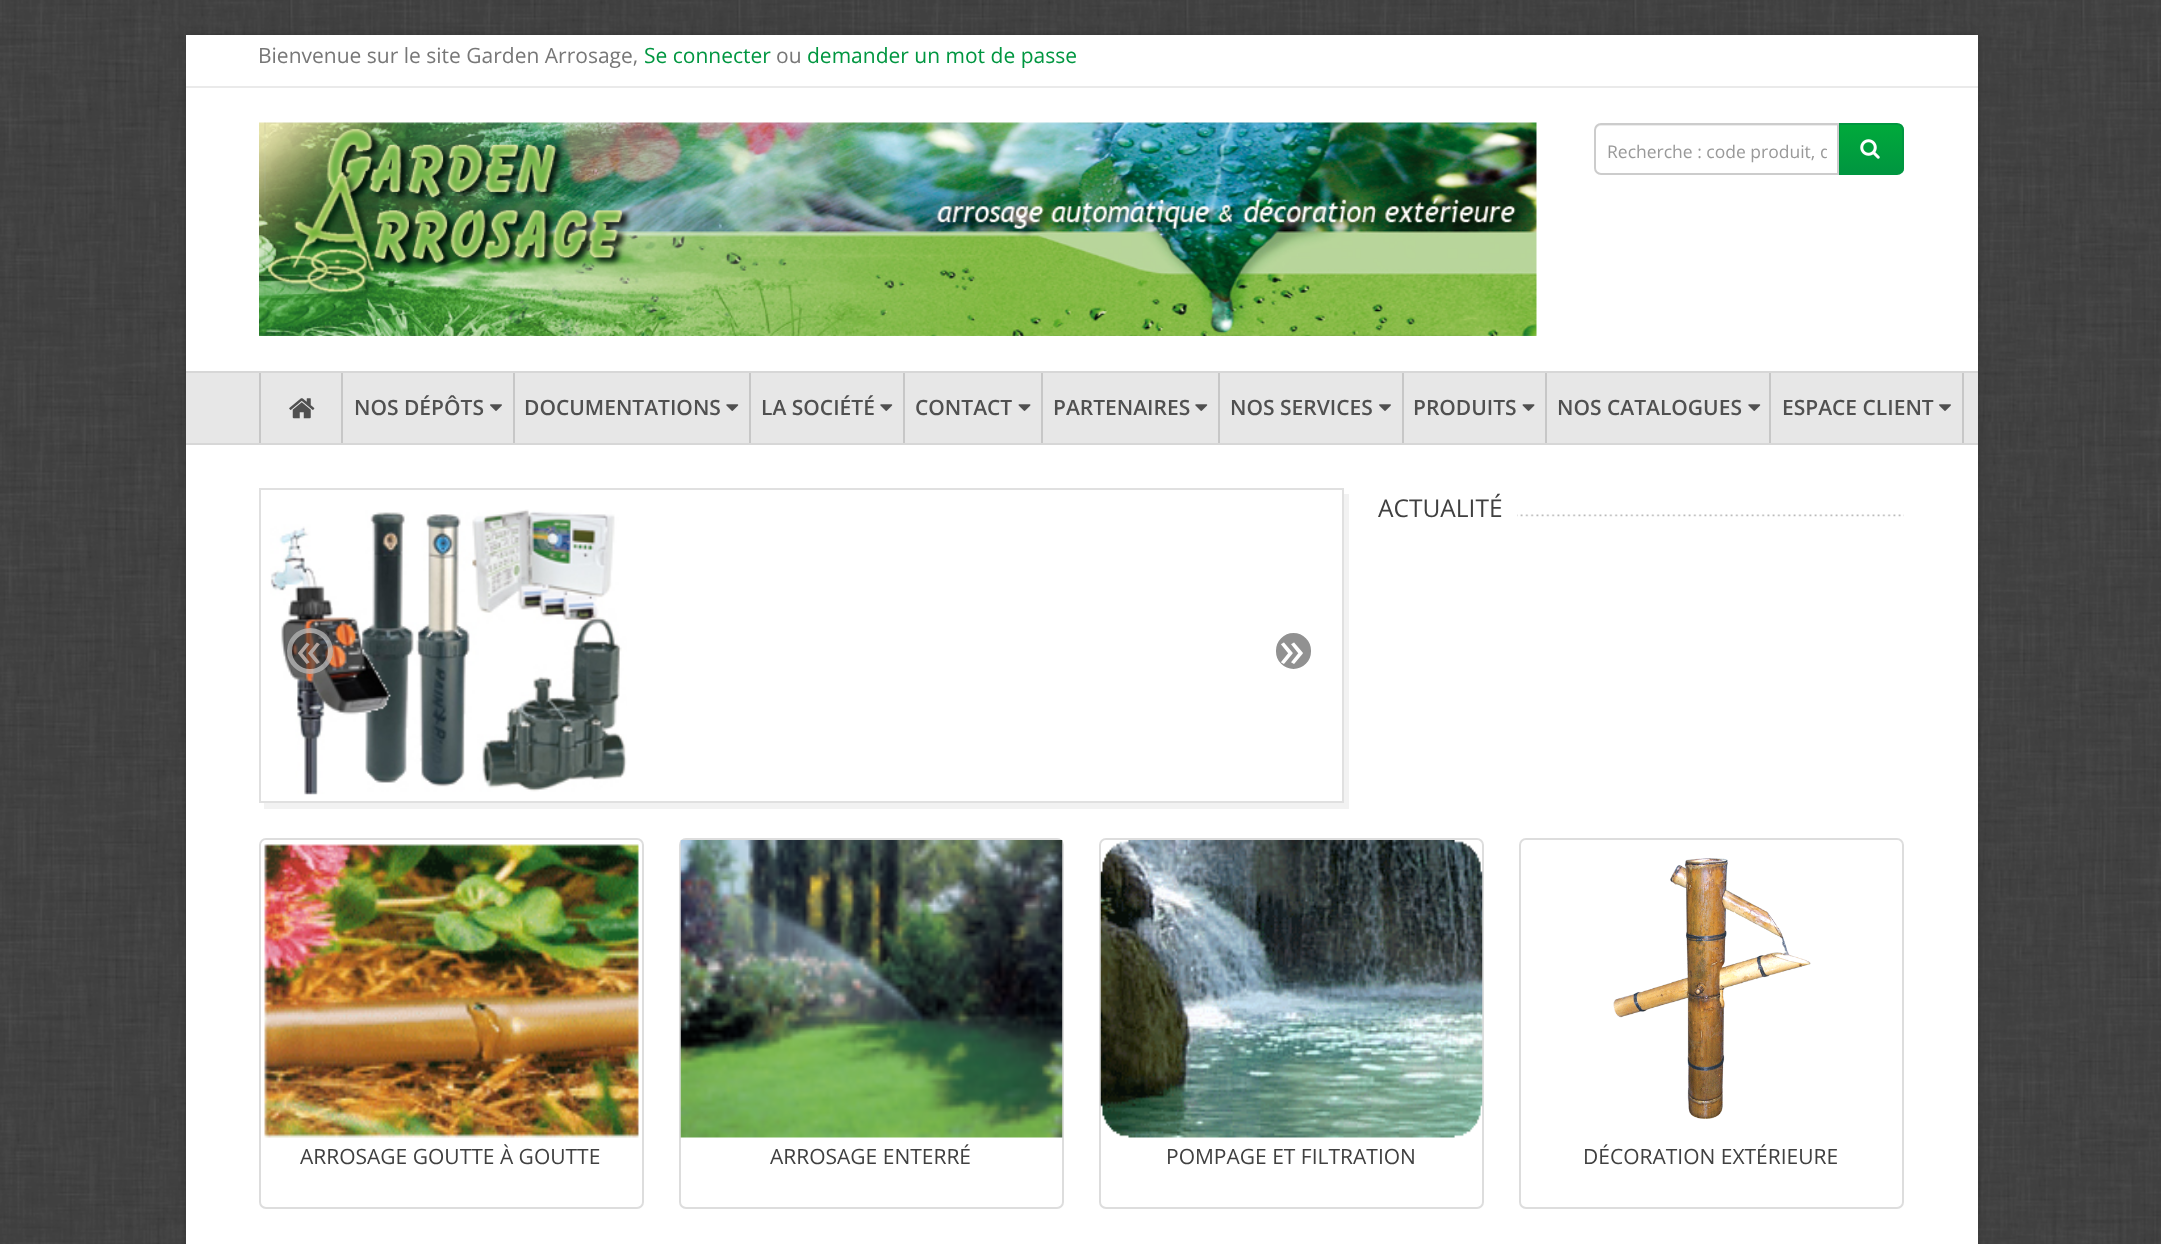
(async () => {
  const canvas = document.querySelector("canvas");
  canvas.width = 2161;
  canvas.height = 1244;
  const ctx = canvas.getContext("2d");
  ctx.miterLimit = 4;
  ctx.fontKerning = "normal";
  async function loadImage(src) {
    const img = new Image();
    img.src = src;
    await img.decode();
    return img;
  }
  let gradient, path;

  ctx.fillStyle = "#ffffff";
  ctx.fillRect(0, 0, 2161, 1244);
  ctx.drawImage(await loadImage("img/1.png"), 0, 0, 2161, 1244);
  ctx.fillStyle = "rgba(0, 0, 0, 0.2)";
  ctx.filter = "blur(3.5px)";
  ctx.beginPath();
  ctx.rect(186, 35, 1792, 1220);
  ctx.fill();
  ctx.filter = "none";
  ctx.fillStyle = "#ffffff";
  ctx.fillRect(186, 35, 1792, 1209);
  ctx.fillStyle = "#eaeaea";
  ctx.fillRect(186, 86, 1792, 2);
  ctx.drawImage(await loadImage("img/2.png"), 259, 122, 1278, 214);
  ctx.save();
  ctx.beginPath();
  ctx.roundRect(1838, 123, 66, 52, [0, 7, 7, 0]);
  ctx.clip();
  gradient = ctx.createLinearGradient(1871, 124, 1871, 173);
  gradient.addColorStop(0, "#00aa3b");
  gradient.addColorStop(1, "#009640");
  ctx.fillStyle = gradient;
  ctx.fillRect(1840, 124, 64, 49);
  ctx.restore();
  ctx.beginPath();
  ctx.roundRect(1839, 124, 64, 50, [0, 6, 6, 0]);
  ctx.strokeStyle = "#009640";
  ctx.lineWidth = 2;
  ctx.stroke();
  ctx.fillStyle = "#ffffff";
  ctx.beginPath();
  ctx.roundRect(1594, 123, 245, 52, [7, 0, 0, 7]);
  ctx.fill();
  ctx.fillStyle = "#ececec";
  path = new Path2D("M1601 126H1838V124H1601C1598 124 1596 126 1596 129V131C1596 128 1598 126 1601 126Z");
  ctx.fill(path);
  ctx.beginPath();
  ctx.roundRect(1595, 124, 243, 50, [6, 0, 0, 6]);
  ctx.strokeStyle = "#cccccc";
  ctx.stroke();
  ctx.drawImage(await loadImage("img/3.png"), 1860, 139, 20, 20);
  for (const [x, y, w, h, color] of [
    [186, 373, 1792, 70, "#e7e7e7"],
    [186, 371, 1792, 2, "#d7d7d7"],
    [186, 443, 1792, 2, "#d7d7d7"],
    [341, 373, 2, 70, "#c7c7c7"],
    [259, 373, 2, 70, "#c7c7c7"],
  ]) {
    ctx.fillStyle = color;
    ctx.fillRect(x, y, w, h);
  }
  ctx.drawImage(await loadImage("img/4.png"), 289, 398, 26, 21);
  ctx.fillRect(513, 373, 2, 70);
  ctx.drawImage(await loadImage("img/5.png"), 490, 404, 12, 7);
  ctx.fillRect(749, 373, 2, 70);
  ctx.drawImage(await loadImage("img/6.png"), 726, 404, 13, 7);
  ctx.fillRect(903, 373, 2, 70);
  ctx.drawImage(await loadImage("img/6.png"), 880, 404, 13, 7);
  ctx.fillRect(1041, 373, 2, 70);
  ctx.drawImage(await loadImage("img/7.png"), 1018, 404, 13, 7);
  ctx.fillRect(1218, 373, 2, 70);
  ctx.drawImage(await loadImage("img/6.png"), 1195, 404, 13, 7);
  ctx.fillRect(1402, 373, 2, 70);
  ctx.drawImage(await loadImage("img/5.png"), 1379, 404, 12, 7);
  ctx.fillRect(1545, 373, 2, 70);
  ctx.drawImage(await loadImage("img/7.png"), 1522, 404, 13, 7);
  ctx.fillRect(1769, 373, 2, 70);
  ctx.drawImage(await loadImage("img/6.png"), 1748, 404, 13, 7);
  ctx.fillRect(1962, 373, 2, 70);
  ctx.drawImage(await loadImage("img/5.png"), 1939, 404, 12, 7);
  ctx.drawImage(await loadImage("img/8.png"), 1517, 514, 387, 3);
  ctx.fillStyle = "#f2f2f2";
  path = new Path2D("M264 803V809H1349V494H1344V803Z");
  ctx.fill(path);
  ctx.strokeStyle = "#e0e0e0";
  ctx.strokeRect(260, 489, 1083, 313);
  ctx.drawImage(await loadImage("img/9.png"), 270, 509, 357, 286);
  ctx.fillStyle = "rgba(34, 34, 34, 0.5)";
  ctx.beginPath();
  ctx.arc(310, 651, 23, 0, Math.PI * 2);
  ctx.fill();
  ctx.beginPath();
  ctx.arc(310, 651, 20.5, 0, Math.PI * 2);
  ctx.strokeStyle = "rgba(255, 255, 255, 0.5)";
  ctx.lineWidth = 5;
  ctx.stroke();
  ctx.fillStyle = "#919191";
  ctx.beginPath();
  ctx.roundRect(1273.5, 630.5, 40, 41, 20);
  ctx.fill();
  ctx.strokeStyle = "#ffffff";
  ctx.stroke();
  ctx.beginPath();
  ctx.roundRect(260, 839, 383, 369, 6);
  ctx.strokeStyle = "#dddddd";
  ctx.lineWidth = 2;
  ctx.stroke();
  ctx.drawImage(await loadImage("img/10.png"), 264, 844, 375, 294);
  ctx.beginPath();
  ctx.roundRect(680, 839, 383, 369, 6);
  ctx.stroke();
  ctx.drawImage(await loadImage("img/11.png"), 680, 840, 383, 298);
  ctx.beginPath();
  ctx.roundRect(1100, 839, 383, 369, 6);
  ctx.stroke();
  ctx.drawImage(await loadImage("img/12.png"), 1100, 840, 383, 298);
  ctx.beginPath();
  ctx.roundRect(1520, 839, 383, 369, 6);
  ctx.stroke();
  ctx.drawImage(await loadImage("img/13.png"), 1613, 858, 198, 261);
  ctx.font = "21px Open Sans";
  ctx.fillStyle = "#777777";
  ctx.fillText("Bienvenue sur le site Garden Arrosage,", 258, 63);
  ctx.fillStyle = "#009640";
  ctx.fillText("Se connecter", 644, 63);
  ctx.fillStyle = "#777777";
  ctx.fillText("ou", 776, 63);
  ctx.fillStyle = "#009640";
  ctx.fillText("demander un mot de passe", 807, 63);
  ctx.save();
  ctx.beginPath();
  ctx.rect(1607, 138, 220, 25);
  ctx.clip();
  ctx.font = "17.5px Open Sans";
  ctx.fillStyle = "#999999";
  ctx.fillText("Recherche : code produit, d", 1607, 158);
  ctx.restore();
  ctx.font = "600 21px Open Sans";
  ctx.fillStyle = "#505050";
  for (const [text, x, y] of [
    ["NOS DÉPÔTS", 354, 415],
    ["DOCUMENTATIONS", 524, 415],
    ["LA SOCIÉTÉ", 761, 415],
    ["CONTACT", 915, 415],
    ["PARTENAIRES", 1053, 415],
    ["NOS SERVICES", 1230, 415],
    ["PRODUITS", 1413, 415],
    ["NOS CATALOGUES", 1557, 415],
    ["ESPACE CLIENT", 1782, 415],
  ]) {
    ctx.fillText(text, x, y);
  }
  ctx.font = "24.5px Open Sans";
  ctx.fillStyle = "#404040";
  ctx.fillText("ACTUALITÉ", 1378, 517);
  ctx.font = "52px Open Sans";
  ctx.fillStyle = "#b0a49f";
  ctx.fillText("«", 296, 667);
  ctx.fillStyle = "#ffffff";
  ctx.fillText("»", 1279, 667);
  ctx.font = "21px Open Sans";
  ctx.fillStyle = "#404040";
  for (const [text, x, y] of [
    ["ARROSAGE GOUTTE À GOUTTE", 300, 1164],
    ["ARROSAGE ENTERRÉ", 770, 1164],
    ["POMPAGE ET FILTRATION", 1166, 1164],
    ["DÉCORATION EXTÉRIEURE", 1583, 1164],
  ]) {
    ctx.fillText(text, x, y);
  }
})();
